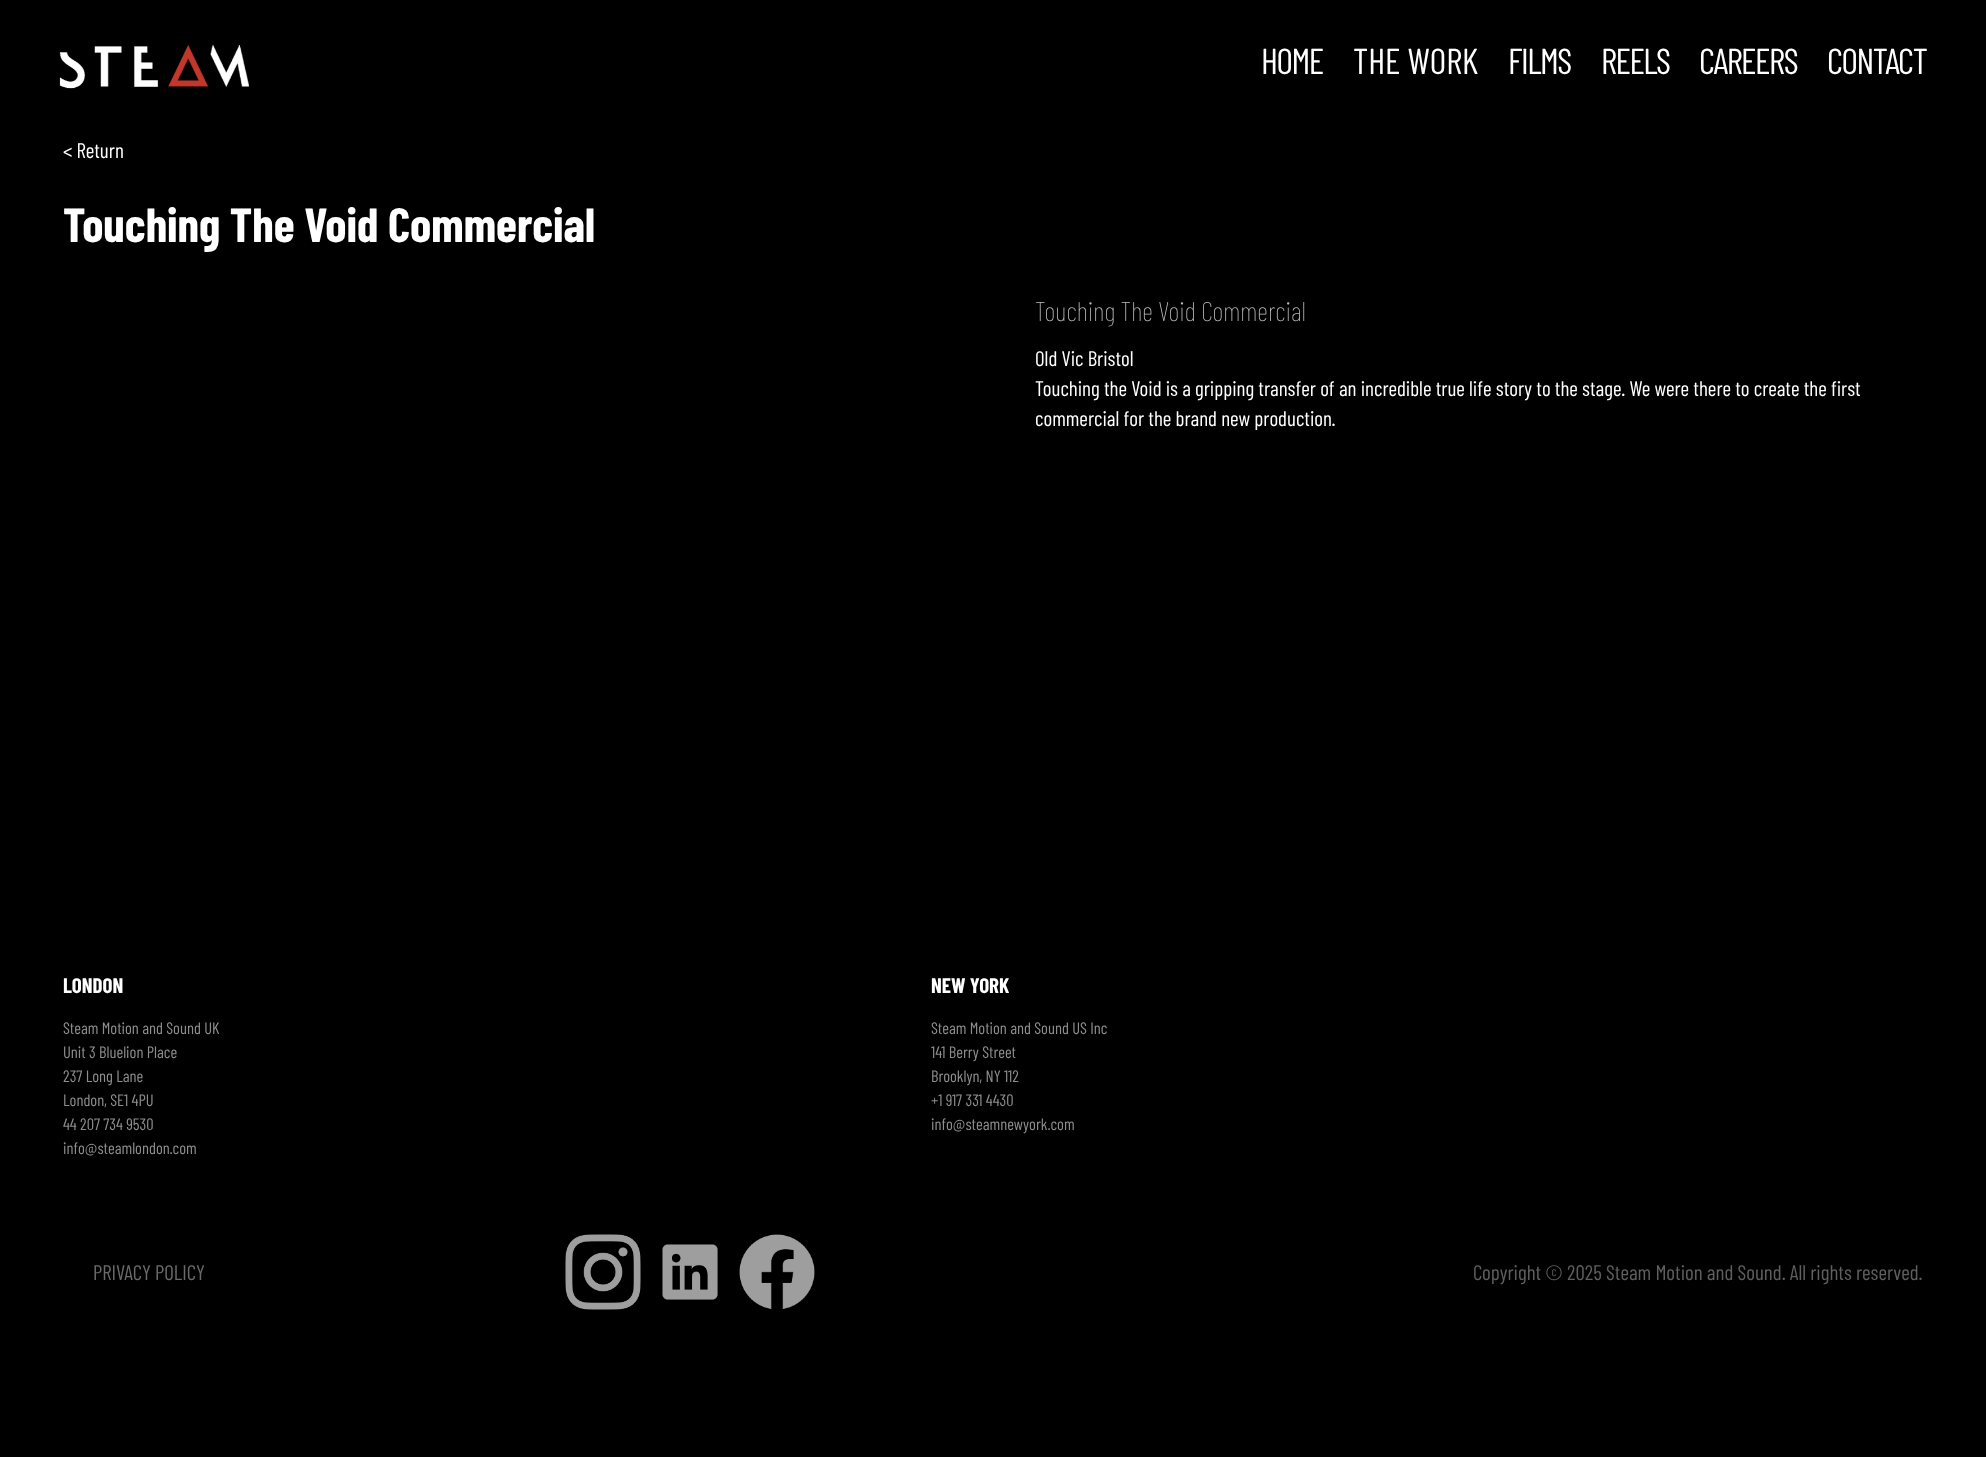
(async () => {
  const canvas = document.querySelector("canvas");
  canvas.width = 1986;
  canvas.height = 1457;
  const ctx = canvas.getContext("2d");
  ctx.miterLimit = 4;
  ctx.fontKerning = "normal";
  async function loadImage(src) {
    const img = new Image();
    img.src = src;
    await img.decode();
    return img;
  }

  ctx.fillStyle = "#000000";
  ctx.fillRect(0, 0, 1986, 1457);
  ctx.drawImage(await loadImage("img/1.png"), 59, 45, 190, 44);
  ctx.drawImage(await loadImage("img/2.png"), 565, 1234, 76, 76);
  ctx.drawImage(await loadImage("img/3.png"), 662, 1244, 56, 56);
  ctx.drawImage(await loadImage("img/4.png"), 739, 1234, 76, 75);
  ctx.letterSpacing = "-1.5px";
  ctx.font = "36px Barlow Condensed";
  ctx.fillStyle = "#ffffff";
  ctx.fillText("HOME", 1261, 74);
  ctx.letterSpacing = "0px";
  ctx.fillText("THE WORK", 1353, 74);
  ctx.letterSpacing = "-1.5px";
  for (const [text, x, y] of [
    ["FILMS", 1508, 74],
    ["REELS", 1601, 74],
    ["CAREERS", 1699, 74],
    ["CONTACT", 1827, 74],
  ]) {
    ctx.fillText(text, x, y);
  }
  ctx.letterSpacing = "0px";
  ctx.font = "21px Barlow Condensed";
  ctx.fillText("< Return", 63, 158);
  ctx.font = "bold 48px Barlow Condensed";
  ctx.fillText("Touching The Void Commercial", 63, 242);
  ctx.font = "100 27px Barlow Condensed";
  ctx.fillStyle = "#bbbbbb";
  ctx.fillText("Touching The Void Commercial", 1035, 321);
  ctx.font = "21px Barlow Condensed";
  ctx.fillStyle = "#ffffff";
  for (const [text, x, y] of [
    ["Old Vic Bristol", 1035, 366],
    ["Touching the Void is a gripping transfer of an incredible true life story to the stage. We were there to create the first", 1035, 396],
    ["commercial for the brand new production.", 1035, 426],
  ]) {
    ctx.fillText(text, x, y);
  }
  ctx.font = "bold 21px Barlow Condensed";
  ctx.fillText("LONDON", 63, 993);
  ctx.font = "16.5px Barlow Condensed";
  ctx.fillStyle = "#8d8d8d";
  for (const [text, x, y] of [
    ["Steam Motion and Sound UK", 63, 1034],
    ["Unit 3 Bluelion Place", 63, 1058],
    ["237 Long Lane", 63, 1082],
    ["London, SE1 4PU", 63, 1106],
    ["44 207 734 9530", 63, 1130],
    ["info@steamlondon.com", 63, 1154],
  ]) {
    ctx.fillText(text, x, y);
  }
  ctx.font = "bold 21px Barlow Condensed";
  ctx.fillStyle = "#ffffff";
  ctx.fillText("NEW YORK", 931, 993);
  ctx.font = "16.5px Barlow Condensed";
  ctx.fillStyle = "#8d8d8d";
  for (const [text, x, y] of [
    ["Steam Motion and Sound US Inc", 931, 1034],
    ["141 Berry Street", 931, 1058],
    ["Brooklyn, NY 112", 931, 1082],
    ["+1 917 331 4430", 931, 1106],
    ["info@steamnewyork.com", 931, 1130],
  ]) {
    ctx.fillText(text, x, y);
  }
  ctx.font = "21px Barlow Condensed";
  ctx.fillStyle = "#6b6a6a";
  ctx.fillText("PRIVACY POLICY", 93, 1280);
  ctx.fillStyle = "#5f5f5f";
  ctx.fillText("Copyright © 2025 Steam Motion and Sound. All rights reserved.", 1473, 1280);
})();
